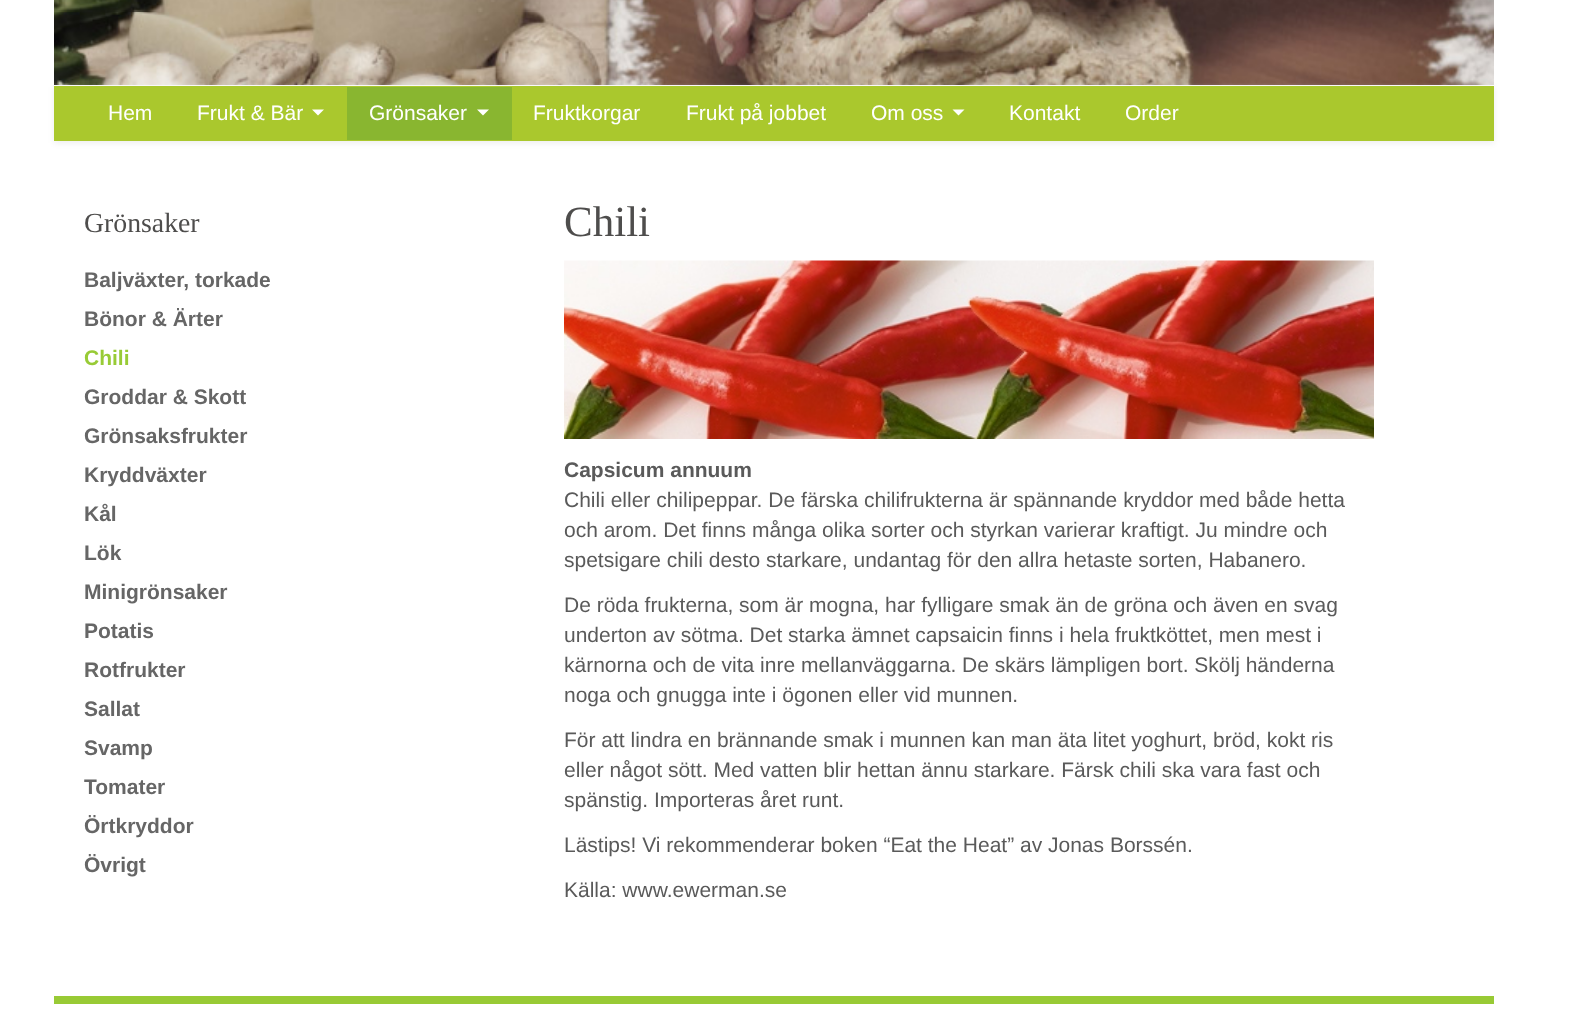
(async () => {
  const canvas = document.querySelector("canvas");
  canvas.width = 1578;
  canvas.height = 1011;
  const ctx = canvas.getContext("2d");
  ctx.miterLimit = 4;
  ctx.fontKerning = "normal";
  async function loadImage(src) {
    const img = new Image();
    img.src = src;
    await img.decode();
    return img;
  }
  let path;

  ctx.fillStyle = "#ffffff";
  ctx.fillRect(0, 0, 1578, 1011);
  ctx.fillStyle = "rgba(0, 0, 0, 0.07)";
  ctx.filter = "blur(3px)";
  ctx.beginPath();
  ctx.rect(54, 87, 1440, 56);
  ctx.fill();
  ctx.filter = "none";
  ctx.drawImage(await loadImage("img/1.png"), 54, 0, 1440, 85);
  ctx.fillStyle = "#aac82d";
  ctx.fillRect(54, 86, 1440, 55);
  ctx.fillStyle = "#ffffff";
  path = new Path2D("M312 109.5H324L318 115.5Z");
  ctx.fill(path);
  ctx.fillStyle = "#89b630";
  ctx.fillRect(347, 87, 165, 53);
  ctx.fillStyle = "#ffffff";
  path = new Path2D("M477 109.5H489L483 115.5Z");
  ctx.fill(path);
  path = new Path2D("M952.5 109.5H964.5L958.5 115.5Z");
  ctx.fill(path);
  ctx.drawImage(await loadImage("img/2.png"), 564, 260, 810, 179);
  ctx.fillStyle = "#98ca35";
  ctx.fillRect(54, 996, 1440, 8);
  ctx.font = "21px Liberation Sans";
  ctx.fillStyle = "#ffffff";
  for (const [text, x, y] of [
    ["Hem", 108, 120],
    ["Frukt & Bär", 197, 120],
    ["Grönsaker", 369, 120],
    ["Fruktkorgar", 533, 120],
    ["Frukt på jobbet", 686, 120],
    ["Om oss", 871, 120],
    ["Kontakt", 1009, 120],
    ["Order", 1125, 120],
  ]) {
    ctx.fillText(text, x, y);
  }
  ctx.font = "27.75px Liberation Serif";
  ctx.fillStyle = "#4e4d4c";
  ctx.fillText("Grönsaker", 84, 232);
  ctx.font = "bold 21px Liberation Sans";
  ctx.fillStyle = "#666666";
  ctx.fillText("Baljväxter, torkade", 84, 287);
  ctx.fillText("Bönor & Ärter", 84, 326);
  ctx.fillStyle = "#98cb36";
  ctx.fillText("Chili", 84, 365);
  ctx.fillStyle = "#666666";
  for (const [text, x, y] of [
    ["Groddar & Skott", 84, 404],
    ["Grönsaksfrukter", 84, 443],
    ["Kryddväxter", 84, 482],
    ["Kål", 84, 521],
    ["Lök", 84, 560],
    ["Minigrönsaker", 84, 599],
    ["Potatis", 84, 638],
    ["Rotfrukter", 84, 677],
    ["Sallat", 84, 716],
    ["Svamp", 84, 755],
    ["Tomater", 84, 794],
    ["Örtkryddor", 84, 833],
    ["Övrigt", 84, 872],
  ]) {
    ctx.fillText(text, x, y);
  }
  ctx.font = "43px Liberation Serif";
  ctx.fillStyle = "#4e4d4c";
  ctx.fillText("Chili", 564, 236);
  ctx.font = "bold 21px Liberation Sans";
  ctx.fillStyle = "#5a5a5a";
  ctx.fillText("Capsicum annuum", 564, 477);
  ctx.font = "21px Liberation Sans";
  for (const [text, x, y] of [
    ["Chili eller chilipeppar. De färska chilifrukterna är spännande kryddor med både hetta", 564, 507],
    ["och arom. Det finns många olika sorter och styrkan varierar kraftigt. Ju mindre och", 564, 537],
    ["spetsigare chili desto starkare, undantag för den allra hetaste sorten, Habanero.", 564, 567],
    ["De röda frukterna, som är mogna, har fylligare smak än de gröna och även en svag", 564, 612],
    ["underton av sötma. Det starka ämnet capsaicin finns i hela fruktköttet, men mest i", 564, 642],
    ["kärnorna och de vita inre mellanväggarna. De skärs lämpligen bort. Skölj händerna", 564, 672],
    ["noga och gnugga inte i ögonen eller vid munnen.", 564, 702],
    ["För att lindra en brännande smak i munnen kan man äta litet yoghurt, bröd, kokt ris", 564, 747],
    ["eller något sött. Med vatten blir hettan ännu starkare. Färsk chili ska vara fast och", 564, 777],
    ["spänstig. Importeras året runt.", 564, 807],
    ["Lästips! Vi rekommenderar boken “Eat the Heat” av Jonas Borssén.", 564, 852],
    ["Källa: www.ewerman.se", 564, 897],
  ]) {
    ctx.fillText(text, x, y);
  }
})();
